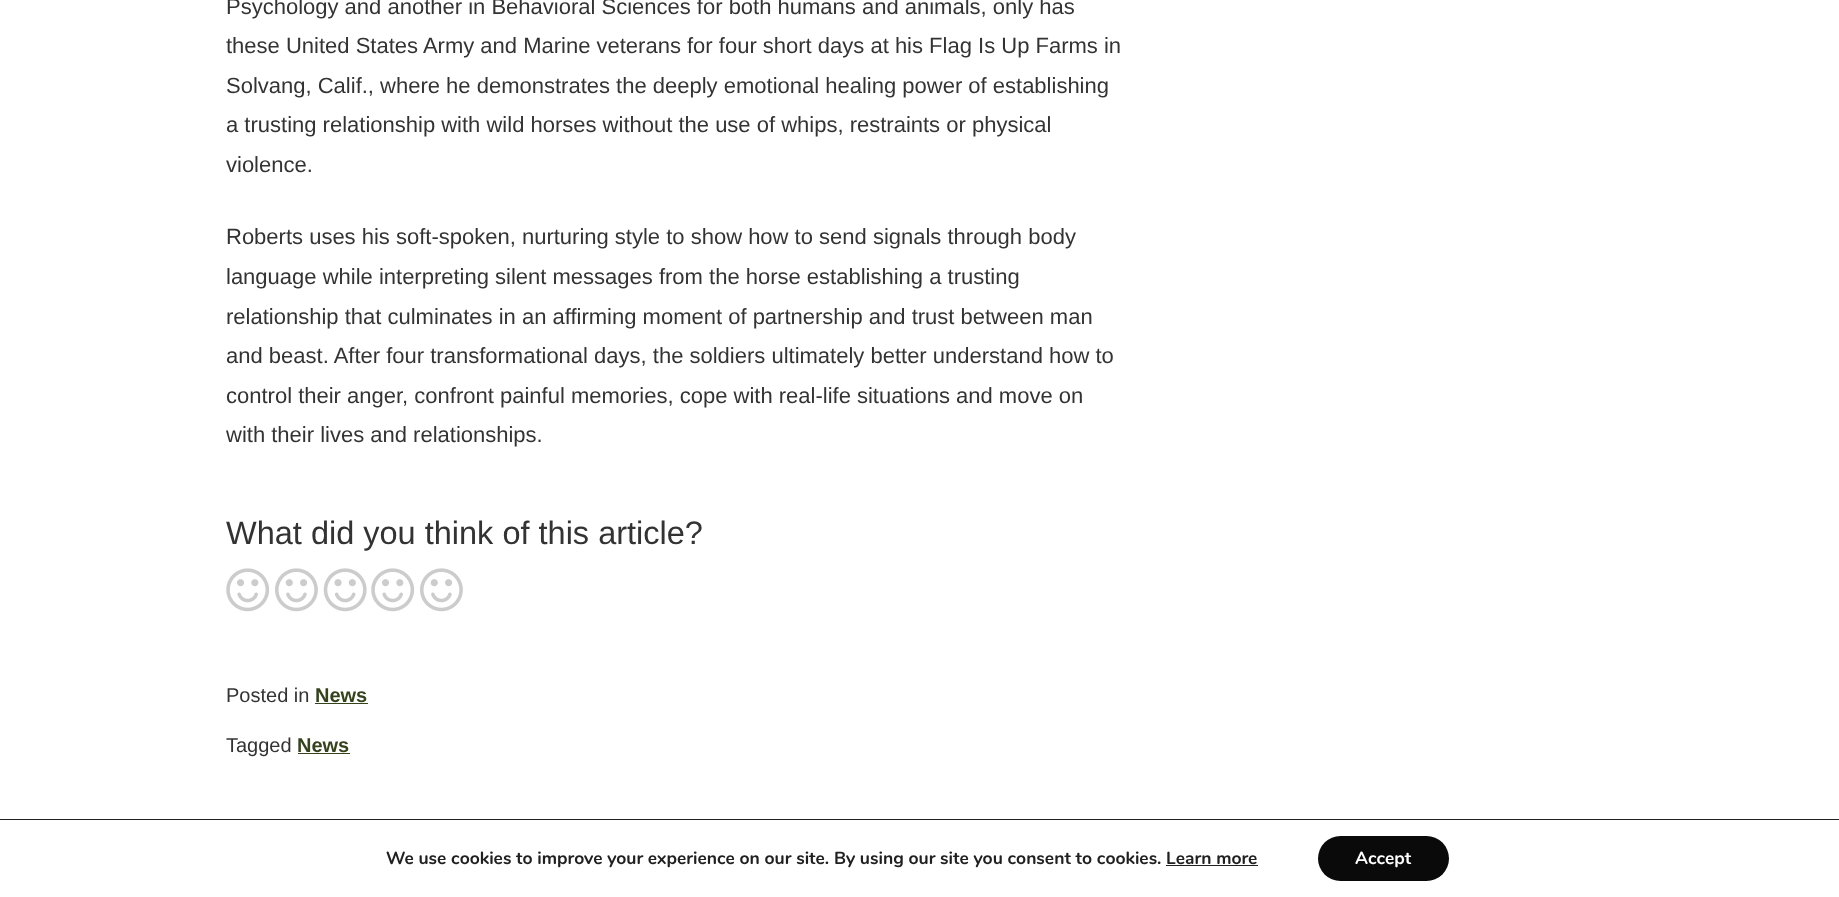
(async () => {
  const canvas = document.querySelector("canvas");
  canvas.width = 1839;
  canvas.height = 897;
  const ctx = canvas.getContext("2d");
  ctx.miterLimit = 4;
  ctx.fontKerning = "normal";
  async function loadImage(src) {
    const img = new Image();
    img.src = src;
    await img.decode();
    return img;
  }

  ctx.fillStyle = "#ffffff";
  ctx.fillRect(0, 0, 1839, 897);
  ctx.drawImage(await loadImage("img/1.png"), 226, 568, 44, 44);
  ctx.drawImage(await loadImage("img/2.png"), 275, 568, 43, 44);
  ctx.drawImage(await loadImage("img/3.png"), 323, 568, 44, 44);
  ctx.drawImage(await loadImage("img/1.png"), 371, 568, 44, 44);
  ctx.drawImage(await loadImage("img/2.png"), 420, 568, 43, 44);
  for (const [x, y, w, h, color] of [
    [315, 703, 53, 1, "#35431c"],
    [298, 753, 52, 1, "#35431c"],
    [0, 819, 1839, 1, "#202020"],
    [1166, 865, 92, 1, "#202020"],
  ]) {
    ctx.fillStyle = color;
    ctx.fillRect(x, y, w, h);
  }
  ctx.fillStyle = "#0a0a0a";
  ctx.beginPath();
  ctx.roundRect(1318, 836, 131, 45, 22.5);
  ctx.fill();
  ctx.font = "22px Liberation Sans";
  ctx.fillStyle = "#333333";
  for (const [text, x, y] of [
    ["Psychology and another in Behavioral Sciences for both humans and animals, only has", 226, 14],
    ["these United States Army and Marine veterans for four short days at his Flag Is Up Farms in", 226, 53],
    ["Solvang, Calif., where he demonstrates the deeply emotional healing power of establishing", 226, 93],
    ["a trusting relationship with wild horses without the use of whips, restraints or physical", 226, 132],
    ["violence.", 226, 172],
    ["Roberts uses his soft-spoken, nurturing style to show how to send signals through body", 226, 244],
    ["language while interpreting silent messages from the horse establishing a trusting", 226, 284],
    ["relationship that culminates in an affirming moment of partnership and trust between man", 226, 324],
    ["and beast. After four transformational days, the soldiers ultimately better understand how to", 226, 363],
    ["control their anger, confront painful memories, cope with real-life situations and move on", 226, 403],
    ["with their lives and relationships.", 226, 442],
  ]) {
    ctx.fillText(text, x, y);
  }
  ctx.font = "32.5px Liberation Sans";
  ctx.fillText("What did you think of this article?", 226, 544);
  ctx.font = "20px Liberation Sans";
  ctx.fillText("Posted in", 226, 702);
  ctx.font = "bold 20px Liberation Sans";
  ctx.fillStyle = "#35431c";
  ctx.fillText("News", 315, 702);
  ctx.font = "20px Liberation Sans";
  ctx.fillStyle = "#333333";
  ctx.fillText("Tagged", 226, 752);
  ctx.font = "bold 20px Liberation Sans";
  ctx.fillStyle = "#35431c";
  ctx.fillText("News", 297, 752);
  ctx.font = "bold 17.5px Nunito";
  ctx.fillStyle = "#202020";
  ctx.fillText("We use cookies to improve your experience on our site. By using our site you consent to cookies. Learn more", 386, 864);
  ctx.fillStyle = "#ffffff";
  ctx.fillText("Accept", 1355, 864);
})();
